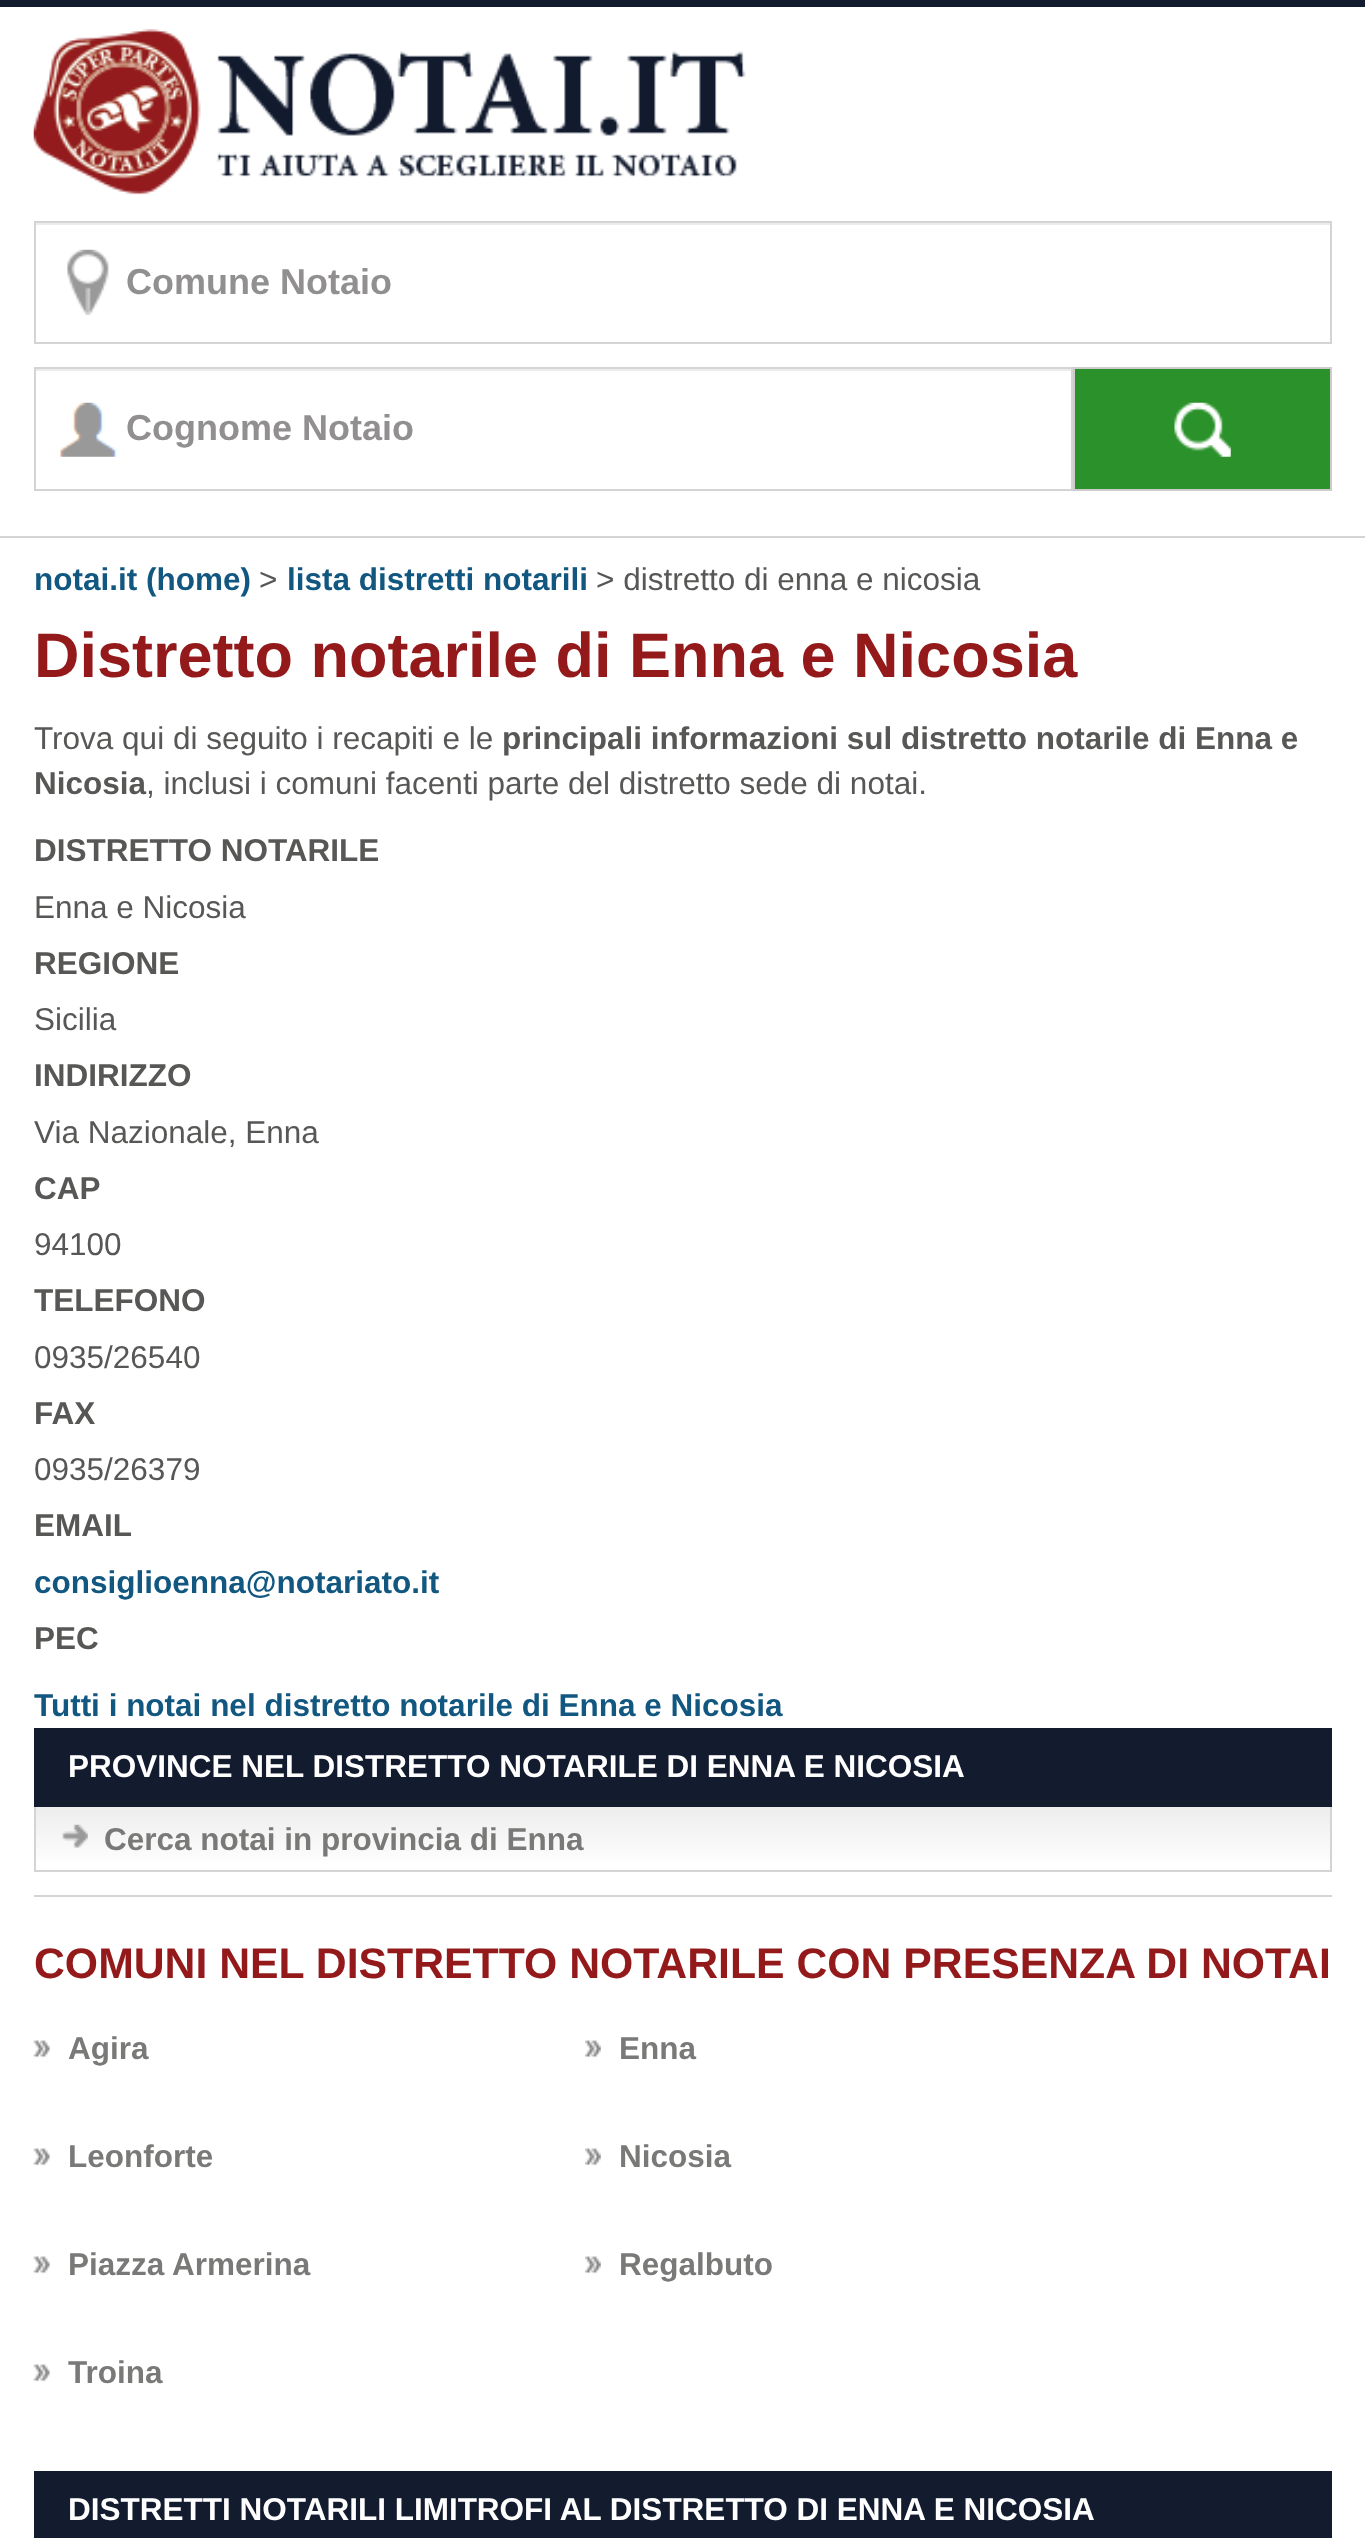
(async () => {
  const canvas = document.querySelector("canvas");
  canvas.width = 1365;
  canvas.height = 2538;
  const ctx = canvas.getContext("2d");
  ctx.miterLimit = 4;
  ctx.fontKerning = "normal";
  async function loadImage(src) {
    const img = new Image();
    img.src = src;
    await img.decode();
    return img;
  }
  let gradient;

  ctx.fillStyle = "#ffffff";
  ctx.fillRect(0, 0, 1365, 2538);
  ctx.fillStyle = "#d4d4d4";
  ctx.fillRect(0, 536, 1365, 2);
  ctx.fillStyle = "#131b2f";
  ctx.fillRect(0, 0, 1365, 7);
  ctx.drawImage(await loadImage("img/1.png"), 33, 29, 713, 166);
  ctx.drawImage(await loadImage("img/2.png"), 67, 249, 42, 66);
  ctx.fillStyle = "#ececec";
  ctx.fillRect(36, 223, 1294, 2);
  ctx.strokeStyle = "#d4d4d4";
  ctx.lineWidth = 2;
  ctx.strokeRect(35, 222, 1296, 121);
  ctx.drawImage(await loadImage("img/3.png"), 58, 402, 59, 55);
  ctx.fillRect(36, 369, 1035, 2);
  ctx.strokeRect(35, 368, 1037, 122);
  ctx.fillStyle = "#2b922b";
  ctx.fillRect(1075, 369, 255, 120);
  ctx.drawImage(await loadImage("img/4.png"), 1174, 402, 57, 55);
  ctx.strokeStyle = "#cccccc";
  ctx.strokeRect(1074, 368, 257, 122);
  ctx.fillStyle = "#131b2f";
  ctx.fillRect(34, 1728, 1298, 79);
  gradient = ctx.createLinearGradient(683, 1807, 683, 1870);
  gradient.addColorStop(0, "#ededed");
  gradient.addColorStop(0.47, "#f6f6f6");
  gradient.addColorStop(1, "#ffffff");
  ctx.fillStyle = gradient;
  ctx.fillRect(36, 1807, 1294, 54);
  for (const [x, y, w, h, color] of [
    [1330, 1807, 2, 65, "#d4d4d4"],
    [34, 1870, 1298, 2, "#d4d4d4"],
    [34, 1807, 2, 65, "#d4d4d4"],
  ]) {
    ctx.fillStyle = color;
    ctx.fillRect(x, y, w, h);
  }
  ctx.drawImage(await loadImage("img/5.png"), 62, 1824, 26, 24);
  ctx.fillRect(34, 1895, 1298, 2);
  ctx.drawImage(await loadImage("img/6.png"), 33, 2040, 17, 18);
  ctx.drawImage(await loadImage("img/7.png"), 585, 2040, 16, 18);
  ctx.drawImage(await loadImage("img/6.png"), 33, 2148, 17, 18);
  ctx.drawImage(await loadImage("img/7.png"), 585, 2148, 16, 18);
  ctx.drawImage(await loadImage("img/6.png"), 33, 2256, 17, 18);
  ctx.drawImage(await loadImage("img/7.png"), 585, 2256, 16, 18);
  ctx.drawImage(await loadImage("img/6.png"), 33, 2364, 17, 18);
  ctx.fillStyle = "#131b2f";
  ctx.fillRect(34, 2471, 1298, 67);
  ctx.font = "bold 36px Liberation Sans";
  ctx.fillStyle = "#918f8f";
  ctx.fillText("Comune Notaio", 126, 294);
  ctx.fillText("Cognome Notaio", 126, 440);
  ctx.font = "bold 31.5px Liberation Sans";
  ctx.fillStyle = "#115780";
  ctx.fillText("notai.it (home)", 34, 590);
  ctx.font = "31.5px Liberation Sans";
  ctx.fillStyle = "#575756";
  ctx.fillText(">", 259, 590);
  ctx.font = "bold 31.5px Liberation Sans";
  ctx.fillStyle = "#115780";
  ctx.fillText("lista distretti notarili", 287, 590);
  ctx.font = "31.5px Liberation Sans";
  ctx.fillStyle = "#575756";
  ctx.fillText("> distretto di enna e nicosia", 596, 590);
  ctx.font = "bold 63px Liberation Sans";
  ctx.fillStyle = "#93191b";
  ctx.fillText("Distretto notarile di Enna e Nicosia", 34, 677);
  ctx.font = "31.5px Liberation Sans";
  ctx.fillStyle = "#575756";
  ctx.fillText("Trova qui di seguito i recapiti e le", 34, 749);
  ctx.font = "bold 31.5px Liberation Sans";
  ctx.fillText("principali informazioni sul distretto notarile di Enna e", 502, 749);
  ctx.fillText("Nicosia", 34, 794);
  ctx.font = "31.5px Liberation Sans";
  ctx.fillText(", inclusi i comuni facenti parte del distretto sede di notai.", 146, 794);
  ctx.font = "bold 31.5px Liberation Sans";
  ctx.fillText("DISTRETTO NOTARILE", 34, 861);
  ctx.font = "31.5px Liberation Sans";
  ctx.fillText("Enna e Nicosia", 34, 918);
  ctx.font = "bold 31.5px Liberation Sans";
  ctx.fillText("REGIONE", 34, 974);
  ctx.font = "31.5px Liberation Sans";
  ctx.fillText("Sicilia", 34, 1030);
  ctx.font = "bold 31.5px Liberation Sans";
  ctx.fillText("INDIRIZZO", 34, 1086);
  ctx.font = "31.5px Liberation Sans";
  ctx.fillText("Via Nazionale, Enna", 34, 1143);
  ctx.font = "bold 31.5px Liberation Sans";
  ctx.fillText("CAP", 34, 1199);
  ctx.font = "31.5px Liberation Sans";
  ctx.fillText("94100", 34, 1255);
  ctx.font = "bold 31.5px Liberation Sans";
  ctx.fillText("TELEFONO", 34, 1311);
  ctx.font = "31.5px Liberation Sans";
  ctx.fillText("0935/26540", 34, 1368);
  ctx.font = "bold 31.5px Liberation Sans";
  ctx.fillText("FAX", 34, 1424);
  ctx.font = "31.5px Liberation Sans";
  ctx.fillText("0935/26379", 34, 1480);
  ctx.font = "bold 31.5px Liberation Sans";
  ctx.fillText("EMAIL", 34, 1536);
  ctx.fillStyle = "#115780";
  ctx.fillText("consiglioenna@notariato.it", 34, 1593);
  ctx.fillStyle = "#575756";
  ctx.fillText("PEC", 34, 1649);
  ctx.fillStyle = "#115780";
  ctx.fillText("Tutti i notai nel distretto notarile di Enna e Nicosia", 34, 1716);
  ctx.fillStyle = "#ffffff";
  ctx.fillText("PROVINCE NEL DISTRETTO NOTARILE DI ENNA E NICOSIA", 68, 1777);
  ctx.fillStyle = "#797978";
  ctx.fillText("Cerca notai in provincia di Enna", 104, 1850);
  ctx.font = "bold 42.75px Liberation Sans";
  ctx.fillStyle = "#93191b";
  ctx.fillText("COMUNI NEL DISTRETTO NOTARILE CON PRESENZA DI NOTAI", 34, 1978);
  ctx.font = "bold 31.5px Liberation Sans";
  ctx.fillStyle = "#797978";
  for (const [text, x, y] of [
    ["Agira", 68, 2059],
    ["Enna", 619, 2059],
    ["Leonforte", 68, 2167],
    ["Nicosia", 619, 2167],
    ["Piazza Armerina", 68, 2275],
    ["Regalbuto", 619, 2275],
    ["Troina", 68, 2383],
  ]) {
    ctx.fillText(text, x, y);
  }
  ctx.fillStyle = "#ffffff";
  ctx.fillText("DISTRETTI NOTARILI LIMITROFI AL DISTRETTO DI ENNA E NICOSIA", 68, 2520);
})();
